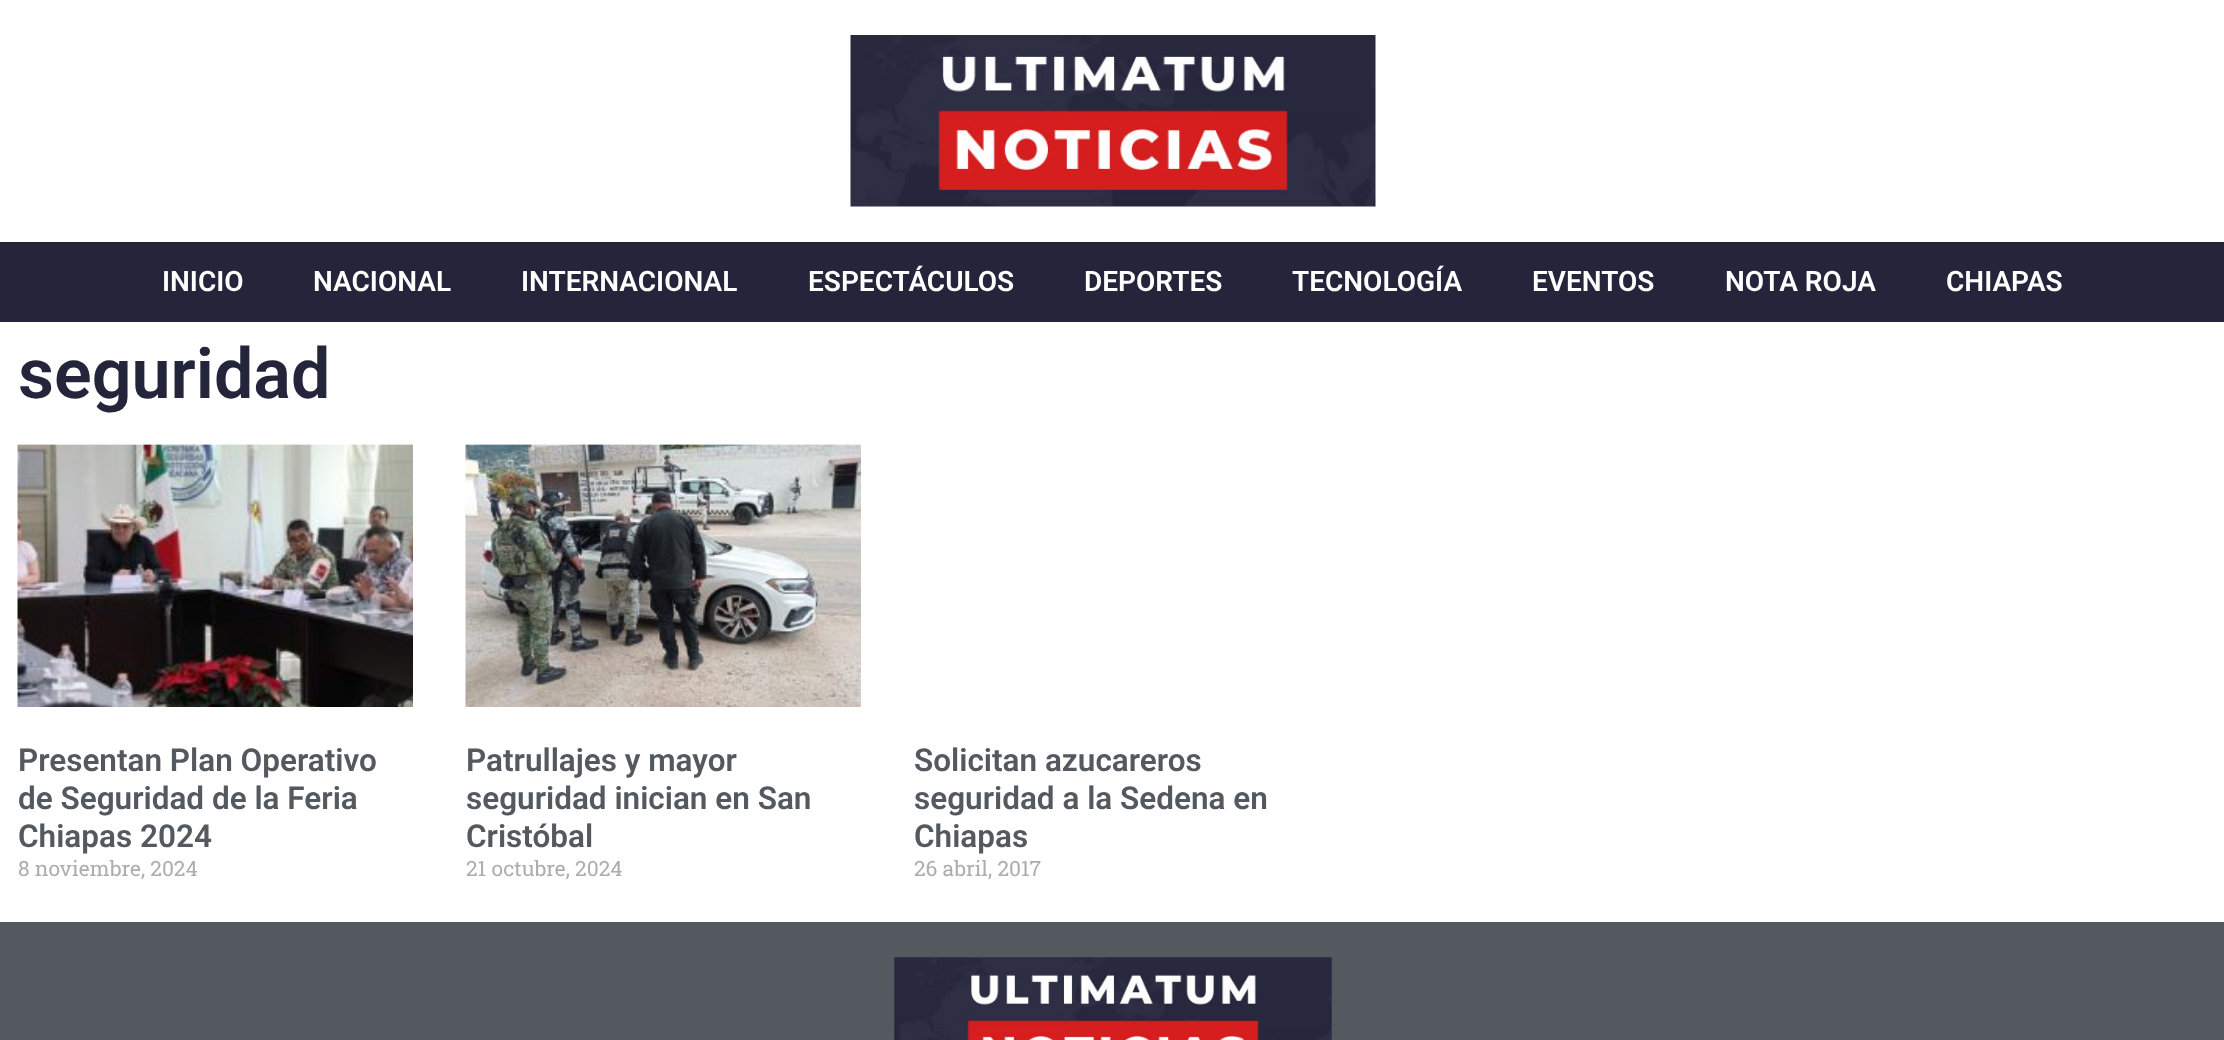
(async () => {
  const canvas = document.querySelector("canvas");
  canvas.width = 2224;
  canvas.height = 1040;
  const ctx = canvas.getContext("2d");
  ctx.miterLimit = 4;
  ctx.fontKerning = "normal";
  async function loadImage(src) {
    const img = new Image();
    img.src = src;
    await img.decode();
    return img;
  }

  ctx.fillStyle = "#ffffff";
  ctx.fillRect(0, 0, 2224, 1040);
  ctx.drawImage(await loadImage("img/1.png"), 850, 35, 526, 172);
  ctx.fillStyle = "#24243b";
  ctx.fillRect(0, 242, 2224, 80);
  ctx.drawImage(await loadImage("img/2.png"), 17, 444, 396, 263);
  ctx.drawImage(await loadImage("img/3.png"), 465, 444, 396, 263);
  ctx.fillStyle = "#54595f";
  ctx.fillRect(0, 922, 2224, 118);
  ctx.drawImage(await loadImage("img/4.png"), 894, 957, 438, 83);
  ctx.font = "600 28px Roboto";
  ctx.fillStyle = "#ffffff";
  for (const [text, x, y] of [
    ["INICIO", 162, 291],
    ["NACIONAL", 313, 291],
    ["INTERNACIONAL", 521, 291],
    ["ESPECTÁCULOS", 808, 291],
    ["DEPORTES", 1084, 291],
    ["TECNOLOGÍA", 1292, 291],
    ["EVENTOS", 1532, 291],
    ["NOTA ROJA", 1725, 291],
    ["CHIAPAS", 1946, 291],
  ]) {
    ctx.fillText(text, x, y);
  }
  ctx.font = "600 70px Roboto";
  ctx.fillStyle = "#24243b";
  ctx.fillText("seguridad", 18, 398);
  ctx.font = "600 31.5px Roboto";
  ctx.fillStyle = "#54595f";
  for (const [text, x, y] of [
    ["Presentan Plan Operativo", 18, 771],
    ["de Seguridad de la Feria", 18, 809],
    ["Chiapas 2024", 18, 847],
  ]) {
    ctx.fillText(text, x, y);
  }
  ctx.font = "21px Roboto Slab";
  ctx.fillStyle = "#adadad";
  ctx.fillText("8 noviembre, 2024", 18, 876);
  ctx.font = "600 31.5px Roboto";
  ctx.fillStyle = "#54595f";
  for (const [text, x, y] of [
    ["Patrullajes y mayor", 466, 771],
    ["seguridad inician en San", 466, 809],
    ["Cristóbal", 466, 847],
  ]) {
    ctx.fillText(text, x, y);
  }
  ctx.font = "21px Roboto Slab";
  ctx.fillStyle = "#adadad";
  ctx.fillText("21 octubre, 2024", 466, 876);
  ctx.font = "600 31.5px Roboto";
  ctx.fillStyle = "#54595f";
  for (const [text, x, y] of [
    ["Solicitan azucareros", 914, 771],
    ["seguridad a la Sedena en", 914, 809],
    ["Chiapas", 914, 847],
  ]) {
    ctx.fillText(text, x, y);
  }
  ctx.font = "21px Roboto Slab";
  ctx.fillStyle = "#adadad";
  ctx.fillText("26 abril, 2017", 914, 876);
})();
